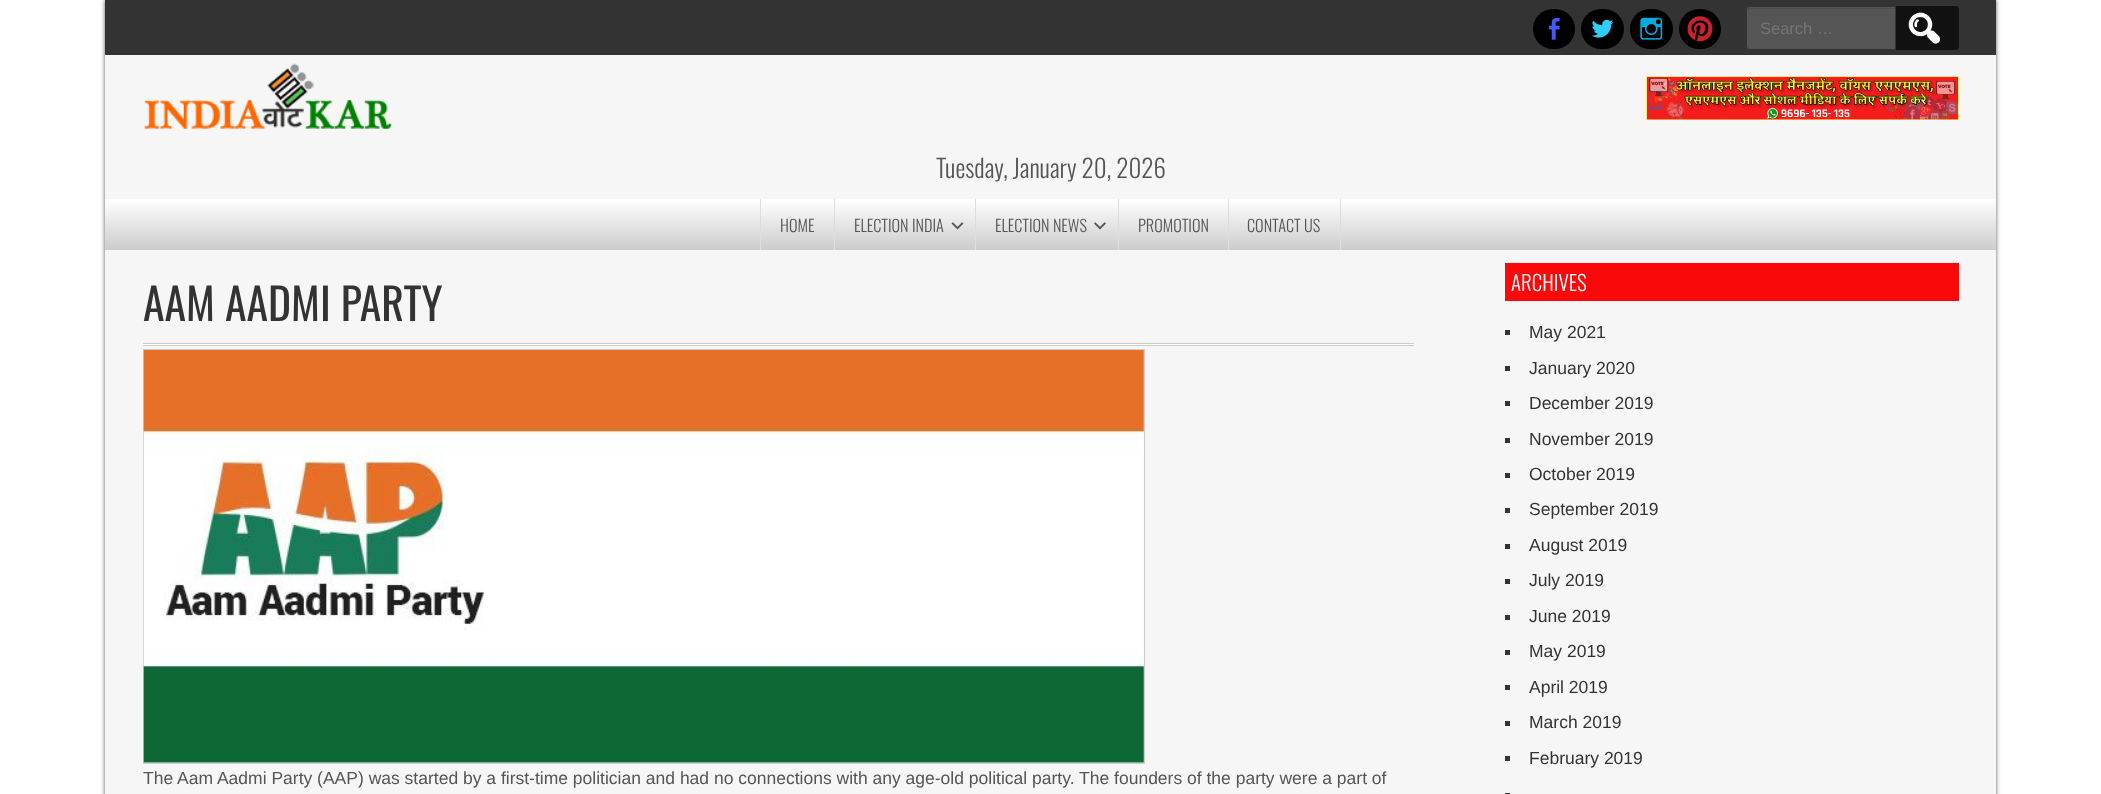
(async () => {
  const canvas = document.querySelector("canvas");
  canvas.width = 2101;
  canvas.height = 794;
  const ctx = canvas.getContext("2d");
  ctx.miterLimit = 4;
  ctx.fontKerning = "normal";
  async function loadImage(src) {
    const img = new Image();
    img.src = src;
    await img.decode();
    return img;
  }
  let gradient, path;

  ctx.fillStyle = "#ffffff";
  ctx.fillRect(0, 0, 2101, 794);
  ctx.fillStyle = "#555555";
  ctx.filter = "blur(2px)";
  ctx.beginPath();
  ctx.rect(105, 0, 1891, 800);
  ctx.fill();
  ctx.filter = "none";
  ctx.fillStyle = "#f6f6f6";
  ctx.fillRect(105, 55, 1891, 739);
  ctx.fillStyle = "#333333";
  ctx.fillRect(105, 0, 1891, 55);
  ctx.fillStyle = "#000000";
  ctx.beginPath();
  ctx.roundRect(1533, 9, 42, 40, 20);
  ctx.fill();
  ctx.drawImage(await loadImage("img/1.png"), 1549, 17, 11, 23);
  ctx.beginPath();
  ctx.roundRect(1581, 9, 43, 40, 20);
  ctx.fill();
  ctx.drawImage(await loadImage("img/2.png"), 1591, 19, 23, 19);
  ctx.beginPath();
  ctx.roundRect(1630, 9, 43, 40, 20);
  ctx.fill();
  ctx.drawImage(await loadImage("img/3.png"), 1640, 17, 23, 23);
  ctx.beginPath();
  ctx.roundRect(1679, 9, 42, 40, 20);
  ctx.fill();
  ctx.drawImage(await loadImage("img/4.png"), 1687, 16, 26, 26);
  ctx.fillStyle = "#111111";
  ctx.beginPath();
  ctx.roundRect(1890, 6, 69, 44, [0, 4, 4, 0]);
  ctx.fill();
  ctx.fillStyle = "#555555";
  ctx.beginPath();
  ctx.roundRect(1746, 6, 150, 44, [4, 0, 0, 4]);
  ctx.fill();
  ctx.fillStyle = "#4d4d4d";
  path = new Path2D("M1750 9H1895V8H1750C1749 8 1748 9 1748 10V11C1748 10 1749 9 1750 9Z");
  ctx.fill(path);
  ctx.beginPath();
  ctx.roundRect(1746.5, 6.5, 149, 43, [3.5, 0, 0, 3.5]);
  ctx.strokeStyle = "#333333";
  ctx.stroke();
  ctx.drawImage(await loadImage("img/5.png"), 1908, 12, 32, 32);
  ctx.drawImage(await loadImage("img/6.png"), 143, 63, 249, 66);
  ctx.drawImage(await loadImage("img/7.png"), 1646, 76, 313, 44);
  gradient = ctx.createLinearGradient(1051, 199, 1051, 250);
  gradient.addColorStop(0, "#ffffff");
  gradient.addColorStop(1, "#cccccc");
  gradient.addColorStop(1, "#f6f6f6");
  ctx.fillStyle = gradient;
  ctx.fillRect(105, 199, 1891, 51);
  for (const [x, y, w, h, color] of [
    [760, 199, 1, 51, "#dddddd"],
    [834, 199, 1, 51, "#dddddd"],
    [975, 199, 1, 51, "#dddddd"],
  ]) {
    ctx.fillStyle = color;
    ctx.fillRect(x, y, w, h);
  }
  ctx.drawImage(await loadImage("img/8.png"), 951, 222, 13, 8);
  ctx.fillRect(1118, 199, 1, 51);
  ctx.drawImage(await loadImage("img/9.png"), 1094, 222, 12, 8);
  for (const [x, y, w, h, color] of [
    [1228, 199, 1, 51, "#dddddd"],
    [1340, 199, 1, 51, "#dddddd"],
    [143, 343, 1271, 3, "#cccccc"],
    [143, 344, 1271, 1, "#ffffff"],
  ]) {
    ctx.fillStyle = color;
    ctx.fillRect(x, y, w, h);
  }
  ctx.strokeStyle = "#cccccc";
  ctx.strokeRect(143.5, 349.5, 1001, 414);
  ctx.drawImage(await loadImage("img/10.png"), 143, 350, 1001, 413);
  for (const [x, y, w, h, color] of [
    [1505, 263, 454, 38, "#f90909"],
    [1505, 330, 5, 5, "#333333"],
    [1505, 366, 5, 5, "#333333"],
    [1505, 401, 5, 5, "#333333"],
    [1505, 438, 5, 5, "#333333"],
    [1505, 473, 5, 5, "#333333"],
    [1505, 508, 5, 5, "#333333"],
    [1505, 544, 5, 5, "#333333"],
    [1505, 579, 5, 5, "#333333"],
    [1505, 615, 5, 5, "#333333"],
    [1505, 650, 5, 5, "#333333"],
    [1505, 685, 5, 5, "#333333"],
    [1505, 721, 5, 5, "#333333"],
    [1505, 756, 5, 5, "#333333"],
    [1505, 793, 5, 1, "#333333"],
  ]) {
    ctx.fillStyle = color;
    ctx.fillRect(x, y, w, h);
  }
  ctx.font = "16.5px Liberation Sans";
  ctx.fillStyle = "#757575";
  ctx.fillText("Search …", 1760, 34);
  ctx.font = "300 25px Oswald";
  ctx.fillStyle = "#555555";
  ctx.fillText("Tuesday, January 20, 2026", 936, 178);
  ctx.font = "300 16.25px Oswald";
  for (const [text, x, y] of [
    ["HOME", 780, 232],
    ["ELECTION INDIA", 854, 232],
    ["ELECTION NEWS", 995, 232],
    ["PROMOTION", 1138, 232],
    ["CONTACT US", 1247, 232],
  ]) {
    ctx.fillText(text, x, y);
  }
  ctx.font = "43.75px Oswald";
  ctx.fillStyle = "#333333";
  ctx.fillText("AAM AADMI PARTY", 143, 321);
  ctx.font = "17.5px Liberation Sans";
  ctx.fillStyle = "#555555";
  ctx.fillText("The Aam Aadmi Party (AAP) was started by a first-time politician and had no connections with any age-old political party. The founders of the party were a part of", 143, 784);
  ctx.font = "300 21px Oswald";
  ctx.fillStyle = "#ffffff";
  ctx.fillText("ARCHIVES", 1511, 291);
  ctx.font = "17.5px Liberation Sans";
  ctx.fillStyle = "#333333";
  for (const [text, x, y] of [
    ["May 2021", 1529, 338],
    ["January 2020", 1529, 374],
    ["December 2019", 1529, 409],
    ["November 2019", 1529, 445],
    ["October 2019", 1529, 480],
    ["September 2019", 1529, 515],
    ["August 2019", 1529, 551],
    ["July 2019", 1529, 586],
    ["June 2019", 1529, 622],
    ["May 2019", 1529, 657],
    ["April 2019", 1529, 693],
    ["March 2019", 1529, 728],
    ["February 2019", 1529, 764],
  ]) {
    ctx.fillText(text, x, y);
  }
})();
